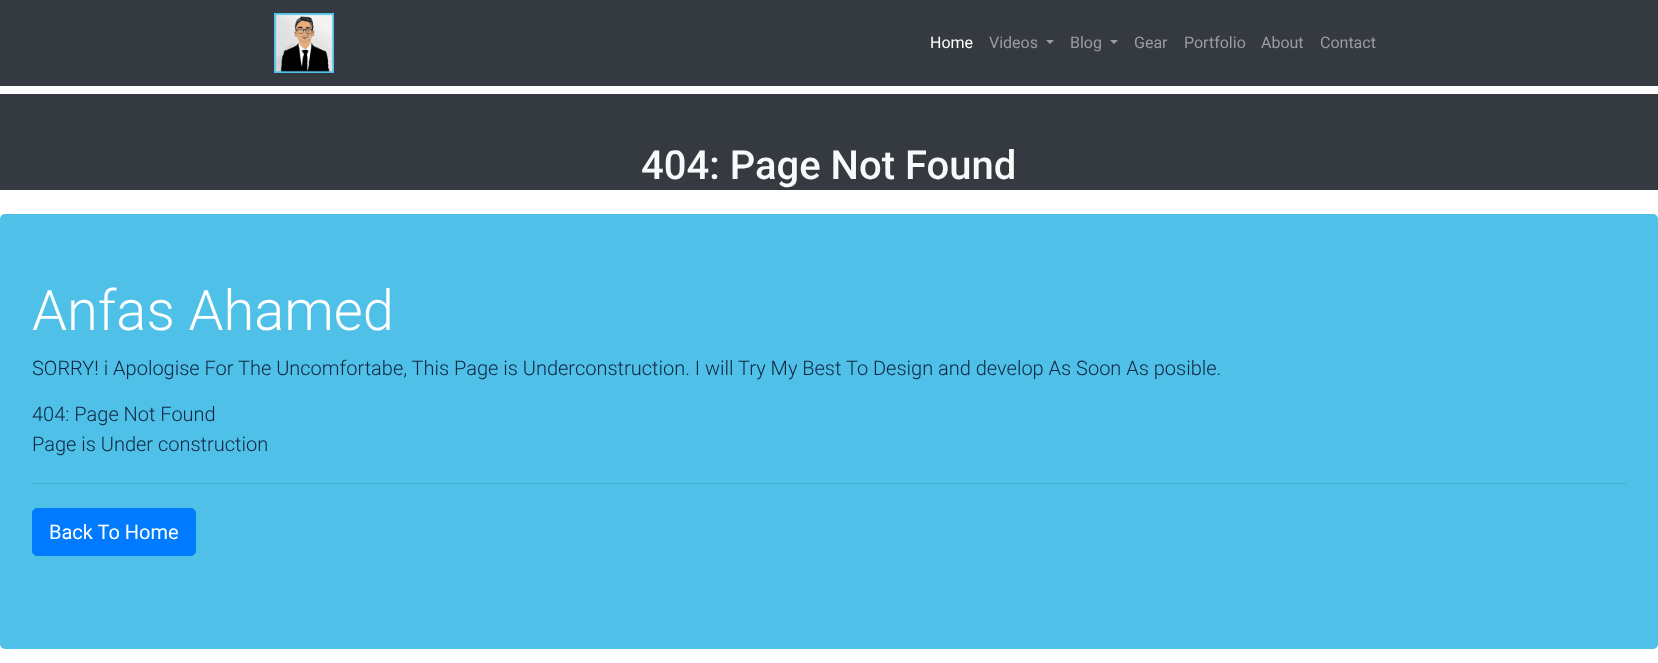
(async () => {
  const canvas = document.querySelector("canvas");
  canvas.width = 1658;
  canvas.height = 663;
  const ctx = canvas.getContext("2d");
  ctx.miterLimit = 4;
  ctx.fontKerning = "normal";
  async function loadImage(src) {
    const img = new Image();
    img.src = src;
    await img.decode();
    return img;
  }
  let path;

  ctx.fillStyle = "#ffffff";
  ctx.fillRect(0, 0, 1658, 663);
  ctx.fillStyle = "#343a40";
  ctx.fillRect(0, 0, 1658, 86);
  ctx.drawImage(await loadImage("img/1.png"), 274, 13, 60, 60);
  ctx.fillStyle = "#9a9da0";
  path = new Path2D("M1046 40H1054L1050 44Z");
  ctx.fill(path);
  path = new Path2D("M1110 40H1118L1114 44Z");
  ctx.fill(path);
  ctx.fillStyle = "#343a40";
  ctx.fillRect(0, 94, 1658, 96);
  ctx.fillStyle = "#4fc1e9";
  ctx.beginPath();
  ctx.roundRect(0, 214, 1658, 435, 5);
  ctx.fill();
  ctx.fillStyle = "#47aed2";
  ctx.fillRect(32, 483, 1594, 1);
  ctx.fillStyle = "#007bff";
  ctx.beginPath();
  ctx.roundRect(32.5, 508.5, 163, 47, 4.5);
  ctx.fill();
  ctx.strokeStyle = "#007bff";
  ctx.stroke();
  ctx.font = "16px Roboto";
  ctx.fillStyle = "#ffffff";
  ctx.fillText("Home", 930, 48);
  ctx.fillStyle = "#9a9da0";
  for (const [text, x, y] of [
    ["Videos", 989, 48],
    ["Blog", 1070, 48],
    ["Gear", 1134, 48],
    ["Portfolio", 1184, 48],
    ["About", 1261, 48],
    ["Contact", 1320, 48],
  ]) {
    ctx.fillText(text, x, y);
  }
  ctx.font = "500 40px Roboto";
  ctx.fillStyle = "#f8f9fa";
  ctx.fillText("404: Page Not Found", 641, 179);
  ctx.font = "300 56px Roboto";
  ctx.fillStyle = "#ffffff";
  ctx.fillText("Anfas Ahamed", 32, 330);
  ctx.font = "300 20px Roboto";
  ctx.fillStyle = "#11243e";
  for (const [text, x, y] of [
    ["SORRY! i Apologise For The Uncomfortabe, This Page is Underconstruction. I will Try My Best To Design and develop As Soon As posible.", 32, 375],
    ["404: Page Not Found", 32, 421],
    ["Page is Under construction", 32, 451],
  ]) {
    ctx.fillText(text, x, y);
  }
  ctx.font = "20px Roboto";
  ctx.fillStyle = "#ffffff";
  ctx.fillText("Back To Home", 49, 539);
})();
